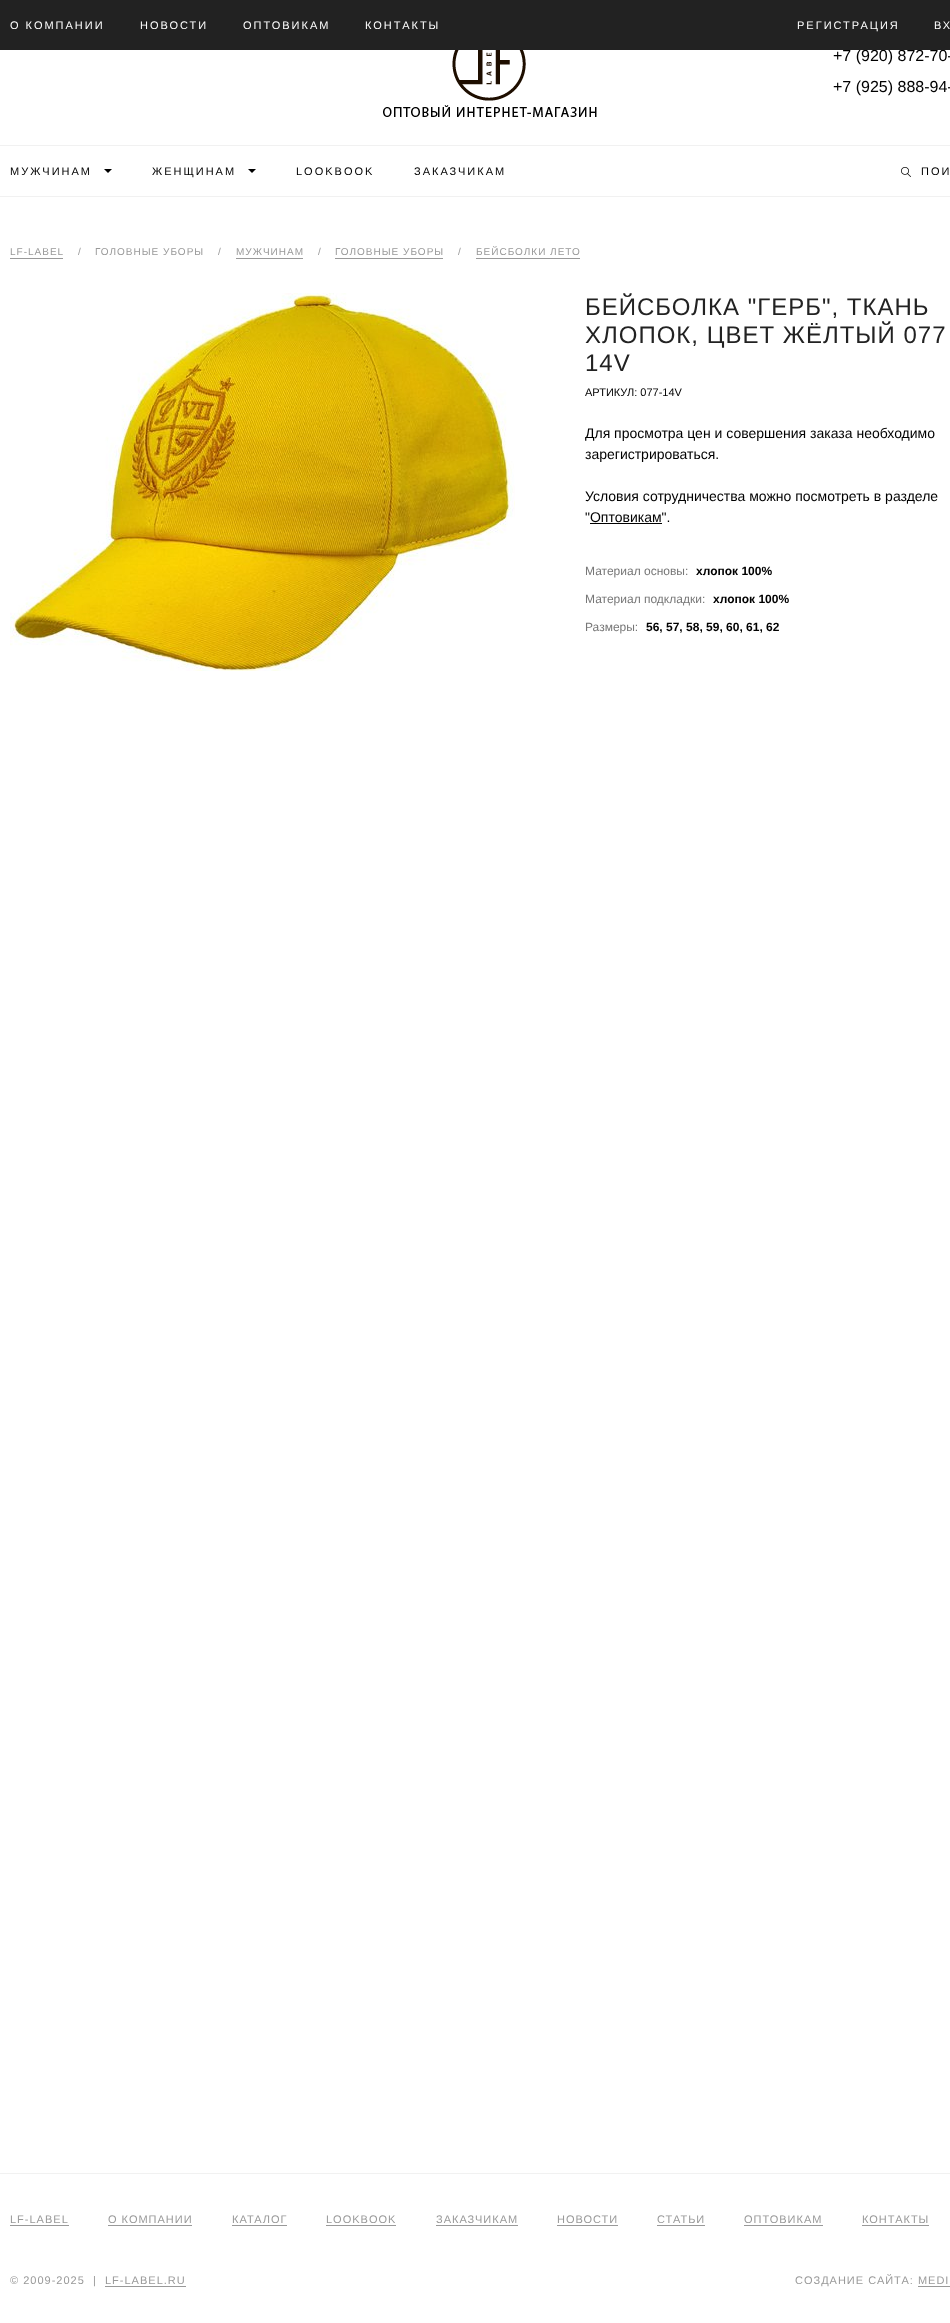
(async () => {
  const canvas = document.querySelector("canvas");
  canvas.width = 950;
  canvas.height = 2323;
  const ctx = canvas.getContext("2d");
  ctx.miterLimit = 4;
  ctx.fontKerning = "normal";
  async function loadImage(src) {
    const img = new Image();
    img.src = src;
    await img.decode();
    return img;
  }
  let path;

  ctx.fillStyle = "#ffffff";
  ctx.fillRect(0, 0, 950, 2323);
  ctx.fillStyle = "#f1f1f1";
  ctx.fillRect(0, 145, 950, 1);
  ctx.drawImage(await loadImage("img/1.png"), 383, 50, 214, 67);
  ctx.fillRect(0, 196, 950, 1);
  ctx.fillStyle = "#000000";
  path = new Path2D("M104 169H112L108 173Z");
  ctx.fill(path);
  path = new Path2D("M248 169H256L252 173Z");
  ctx.fill(path);
  ctx.drawImage(await loadImage("img/2.png"), 901, 167, 10, 10);
  for (const [x, y, w, h, color] of [
    [10, 258, 53, 1, "#999999"],
    [236, 258, 67, 1, "#999999"],
    [335, 258, 108, 1, "#999999"],
    [476, 258, 104, 1, "#999999"],
  ]) {
    ctx.fillStyle = color;
    ctx.fillRect(x, y, w, h);
  }
  ctx.drawImage(await loadImage("img/3.png"), 10, 293, 505, 378);
  for (const [x, y, w, h, color] of [
    [590, 523, 72, 1, "#000000"],
    [0, 2173, 950, 1, "#f1f1f1"],
    [10, 2225, 59, 1, "#999999"],
    [108, 2225, 84, 1, "#999999"],
    [232, 2225, 55, 1, "#999999"],
    [326, 2225, 70, 1, "#999999"],
    [436, 2225, 82, 1, "#999999"],
    [557, 2225, 61, 1, "#999999"],
    [657, 2225, 48, 1, "#999999"],
    [744, 2225, 79, 1, "#999999"],
    [862, 2225, 67, 1, "#999999"],
    [105, 2286, 81, 1, "#999999"],
    [918, 2286, 32, 1, "#999999"],
  ]) {
    ctx.fillStyle = color;
    ctx.fillRect(x, y, w, h);
  }
  ctx.font = "16px Liberation Sans";
  ctx.fillStyle = "#000000";
  ctx.fillText("+7 (920) 872-70-", 833, 61);
  ctx.fillStyle = "#222222";
  ctx.fillRect(0, 0, 950, 50);
  ctx.letterSpacing = "2px";
  ctx.font = "11px Liberation Sans";
  ctx.fillStyle = "#ffffff";
  for (const [text, x, y] of [
    ["ВХ", 934, 29],
    ["РЕГИСТРАЦИЯ", 797, 29],
    ["КОНТАКТЫ", 365, 29],
    ["ОПТОВИКАМ", 243, 29],
    ["НОВОСТИ", 140, 29],
    ["О КОМПАНИИ", 10, 29],
  ]) {
    ctx.fillText(text, x, y);
  }
  ctx.letterSpacing = "0px";
  ctx.font = "16px Liberation Sans";
  ctx.fillStyle = "#000000";
  ctx.fillText("+7 (925) 888-94-", 833, 92);
  ctx.letterSpacing = "2px";
  ctx.font = "11px Liberation Sans";
  for (const [text, x, y] of [
    ["МУЖЧИНАМ", 10, 175],
    ["ЖЕНЩИНАМ", 152, 175],
    ["LOOKBOOK", 296, 175],
    ["ЗАКАЗЧИКАМ", 414, 175],
    ["ПОИ", 921, 175],
  ]) {
    ctx.fillText(text, x, y);
  }
  ctx.letterSpacing = "1px";
  ctx.font = "10px Liberation Sans";
  ctx.fillStyle = "#999999";
  for (const [text, x, y] of [
    ["LF-LABEL", 10, 255],
    ["/", 78, 255],
    ["ГОЛОВНЫЕ УБОРЫ", 95, 255],
    ["/", 218, 255],
    ["МУЖЧИНАМ", 236, 255],
    ["/", 318, 255],
    ["ГОЛОВНЫЕ УБОРЫ", 335, 255],
    ["/", 458, 255],
    ["БЕЙСБОЛКИ ЛЕТО", 476, 255],
  ]) {
    ctx.fillText(text, x, y);
  }
  ctx.font = "24px Liberation Sans";
  ctx.fillStyle = "#222222";
  for (const [text, x, y] of [
    ["БЕЙСБОЛКА \"ГЕРБ\", ТКАНЬ", 585, 315],
    ["ХЛОПОК, ЦВЕТ ЖЁЛТЫЙ 077", 585, 343],
    ["14V", 585, 371],
  ]) {
    ctx.fillText(text, x, y);
  }
  ctx.letterSpacing = "0px";
  ctx.font = "11px Liberation Sans";
  ctx.fillStyle = "#000000";
  ctx.fillText("АРТИКУЛ: 077-14V", 585, 396);
  ctx.font = "14px Liberation Sans";
  for (const [text, x, y] of [
    ["Для просмотра цен и совершения заказа необходимо", 585, 438],
    ["зарегистрироваться.", 585, 459],
    ["Условия сотрудничества можно посмотреть в разделе", 585, 501],
    ["\"Оптовикам\".", 585, 522],
  ]) {
    ctx.fillText(text, x, y);
  }
  ctx.font = "12px Liberation Sans";
  ctx.fillStyle = "#777777";
  ctx.fillText("Материал основы:", 585, 575);
  ctx.font = "bold 12px Liberation Sans";
  ctx.fillStyle = "#000000";
  ctx.fillText("хлопок 100%", 696, 575);
  ctx.font = "12px Liberation Sans";
  ctx.fillStyle = "#777777";
  ctx.fillText("Материал подкладки:", 585, 603);
  ctx.font = "bold 12px Liberation Sans";
  ctx.fillStyle = "#000000";
  ctx.fillText("хлопок 100%", 713, 603);
  ctx.font = "12px Liberation Sans";
  ctx.fillStyle = "#777777";
  ctx.fillText("Размеры:", 585, 631);
  ctx.font = "bold 12px Liberation Sans";
  ctx.fillStyle = "#000000";
  ctx.fillText("56, 57, 58, 59, 60, 61, 62", 646, 631);
  ctx.letterSpacing = "1px";
  ctx.font = "11px Liberation Sans";
  ctx.fillStyle = "#999999";
  for (const [text, x, y] of [
    ["LF-LABEL", 10, 2223],
    ["О КОМПАНИИ", 108, 2223],
    ["КАТАЛОГ", 232, 2223],
    ["LOOKBOOK", 326, 2223],
    ["ЗАКАЗЧИКАМ", 436, 2223],
    ["НОВОСТИ", 557, 2223],
    ["СТАТЬИ", 657, 2223],
    ["ОПТОВИКАМ", 744, 2223],
    ["КОНТАКТЫ", 862, 2223],
    ["© 2009-2025  |", 10, 2284],
    ["LF-LABEL.RU", 105, 2284],
    ["CОЗДАНИЕ САЙТА: MEDI", 795, 2284],
  ]) {
    ctx.fillText(text, x, y);
  }
})();
